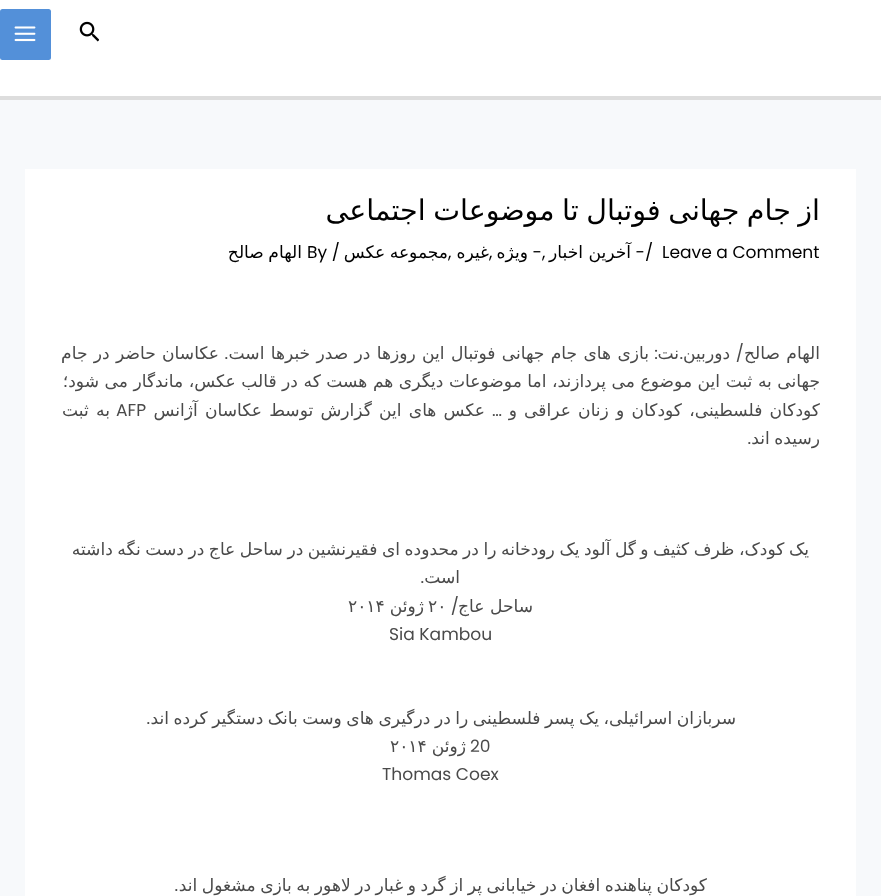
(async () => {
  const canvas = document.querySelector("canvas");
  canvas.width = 881;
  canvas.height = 896;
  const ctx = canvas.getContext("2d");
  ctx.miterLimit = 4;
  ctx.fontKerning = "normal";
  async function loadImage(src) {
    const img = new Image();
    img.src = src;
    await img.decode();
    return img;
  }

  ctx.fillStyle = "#f7f9fb";
  ctx.fillRect(0, 0, 881, 896);
  ctx.fillStyle = "#ffffff";
  ctx.fillRect(0, 0, 881, 96);
  ctx.fillStyle = "#dddddd";
  ctx.fillRect(0, 96, 881, 4);
  ctx.drawImage(await loadImage("img/1.png"), 79, 21, 20, 21);
  ctx.fillStyle = "#5390d9";
  ctx.beginPath();
  ctx.roundRect(0, 9, 51, 51, 2.5);
  ctx.fill();
  ctx.drawImage(await loadImage("img/2.png"), 14, 26, 22, 16);
  ctx.fillStyle = "#ffffff";
  ctx.fillRect(25, 169, 831, 727);
  ctx.wordSpacing = "-1.5px";
  ctx.direction = "rtl";
  ctx.font = "28.5px DejaVu Sans";
  ctx.fillStyle = "#000000";
  ctx.fillText("از جام جهانی فوتبال تا موضوعات اجتماعی", 820, 220);
  ctx.wordSpacing = "0px";
  ctx.direction = "ltr";
  ctx.font = "17.1px Poppins";
  ctx.fillText("Leave a Comment", 662, 258);
  ctx.fillText("/", 645, 258);
  ctx.direction = "rtl";
  ctx.fillText("-", 645, 258);
  ctx.font = "17.1px DejaVu Sans";
  ctx.fillText("آخرین اخبار", 631, 258);
  ctx.font = "17.1px Poppins";
  ctx.fillText("-", 542, 258);
  ctx.font = "17.1px DejaVu Sans";
  ctx.fillText("ویژه", 528, 258);
  ctx.wordSpacing = "-0.9px";
  ctx.fillText("مجموعه عکس", 448, 258);
  ctx.wordSpacing = "0px";
  ctx.direction = "ltr";
  ctx.font = "17.1px Poppins";
  ctx.fillText("By /", 307, 258);
  ctx.wordSpacing = "-0.9px";
  ctx.direction = "rtl";
  ctx.font = "17.1px DejaVu Sans";
  ctx.fillText("الهام صالح", 302, 258);
  ctx.wordSpacing = "0px";
  ctx.direction = "ltr";
  ctx.font = "17.1px Poppins";
  ctx.fillText(",", 542, 258);
  ctx.fillText(",", 489, 258);
  ctx.direction = "rtl";
  ctx.font = "17.1px DejaVu Sans";
  ctx.fillText("غيره", 489, 258);
  ctx.direction = "ltr";
  ctx.font = "17.1px Poppins";
  ctx.fillText(",", 448, 258);
  ctx.wordSpacing = "0.9px";
  ctx.direction = "rtl";
  ctx.font = "17.1px DejaVu Sans";
  ctx.fillStyle = "#4a4a4a";
  ctx.fillText("الهام صالح", 820, 359);
  ctx.wordSpacing = "0px";
  ctx.font = "17.1px Poppins";
  ctx.fillText("/", 744, 359);
  ctx.font = "17.1px DejaVu Sans";
  ctx.fillText("دوربین", 730, 359);
  ctx.font = "17.1px Poppins";
  ctx.fillText(".", 683, 359);
  ctx.font = "17.1px DejaVu Sans";
  ctx.fillText("نت", 679, 359);
  ctx.font = "17.1px Poppins";
  ctx.fillText(":", 658, 359);
  ctx.wordSpacing = "0.9px";
  ctx.font = "17.1px DejaVu Sans";
  ctx.fillText("بازی های جام جهانی فوتبال این روزها در صدر خبرها است", 649, 359);
  ctx.wordSpacing = "0px";
  ctx.font = "17.1px Poppins";
  ctx.fillText(".", 228, 359);
  ctx.wordSpacing = "0.9px";
  ctx.font = "17.1px DejaVu Sans";
  ctx.fillText("عکاسان حاضر در جام", 219, 359);
  ctx.wordSpacing = "0.1px";
  ctx.fillText("جهانی به ثبت این موضوع می پردازند، اما موضوعات دیگری هم هست که در قالب عکس، ماندگار می شود؛", 820, 387);
  ctx.wordSpacing = "1.75px";
  ctx.fillText("کودکان فلسطینی، کودکان و زنان عراقی و", 820, 416);
  ctx.wordSpacing = "0px";
  ctx.font = "17.1px Poppins";
  ctx.fillText("…", 502, 416);
  ctx.wordSpacing = "1.75px";
  ctx.font = "17.1px DejaVu Sans";
  ctx.fillText("عکس های این گزارش توسط عکاسان آژانس", 485, 416);
  ctx.wordSpacing = "0px";
  ctx.direction = "ltr";
  ctx.font = "17.1px Poppins";
  ctx.fillText("AFP", 116, 416);
  ctx.wordSpacing = "2px";
  ctx.direction = "rtl";
  ctx.font = "17.1px DejaVu Sans";
  ctx.fillText("به ثبت", 110, 416);
  ctx.wordSpacing = "-0.9px";
  ctx.fillText("رسیده اند", 820, 444);
  ctx.wordSpacing = "0px";
  ctx.font = "17.1px Poppins";
  ctx.fillText(".", 751, 444);
  ctx.wordSpacing = "-0.9px";
  ctx.font = "17.1px DejaVu Sans";
  ctx.fillText("گل آلود یک رودخانه را در محدوده ای فقیرنشین در ساحل عاج در دست نگه داشته", 636, 555);
  ctx.fillText("یک کودک، ظرف کثیف و", 809, 555);
  ctx.wordSpacing = "0px";
  ctx.fillText("است", 460, 583);
  ctx.font = "17.1px Poppins";
  ctx.fillText(".", 424, 583);
  ctx.font = "17.1px DejaVu Sans";
  ctx.fillText("ساحل عاج", 533, 612);
  ctx.font = "17.1px Poppins";
  ctx.fillText("/", 459, 612);
  ctx.direction = "ltr";
  ctx.font = "17.1px DejaVu Sans";
  ctx.fillText("۲۰", 428, 612);
  ctx.direction = "rtl";
  ctx.fillText("ژوئن", 424, 612);
  ctx.direction = "ltr";
  ctx.fillText("۲۰۱۴", 348, 612);
  ctx.font = "17.1px Poppins";
  ctx.fillText("Sia Kambou", 389, 640);
  ctx.wordSpacing = "-0.9px";
  ctx.direction = "rtl";
  ctx.font = "17.1px DejaVu Sans";
  ctx.fillText("سربازان اسرائیلی، یک پسر فلسطینی را در درگیری های وست بانک دستگیر کرده اند", 736, 724);
  ctx.wordSpacing = "0px";
  ctx.font = "17.1px Poppins";
  ctx.fillText(".", 150, 724);
  ctx.direction = "ltr";
  ctx.fillText("20", 470, 752);
  ctx.direction = "rtl";
  ctx.font = "17.1px DejaVu Sans";
  ctx.fillText("ژوئن", 466, 752);
  ctx.direction = "ltr";
  ctx.fillText("۲۰۱۴", 390, 752);
  ctx.font = "17.1px Poppins";
  ctx.fillText("Thomas Coex", 382, 780);
  ctx.wordSpacing = "-0.9px";
  ctx.direction = "rtl";
  ctx.font = "17.1px DejaVu Sans";
  ctx.fillText("کودکان پناهنده افغان در خیابانی پر از گرد و غبار در لاهور به بازی مشغول اند", 707, 891);
  ctx.wordSpacing = "0px";
  ctx.font = "17.1px Poppins";
  ctx.fillText(".", 178, 891);
})();
